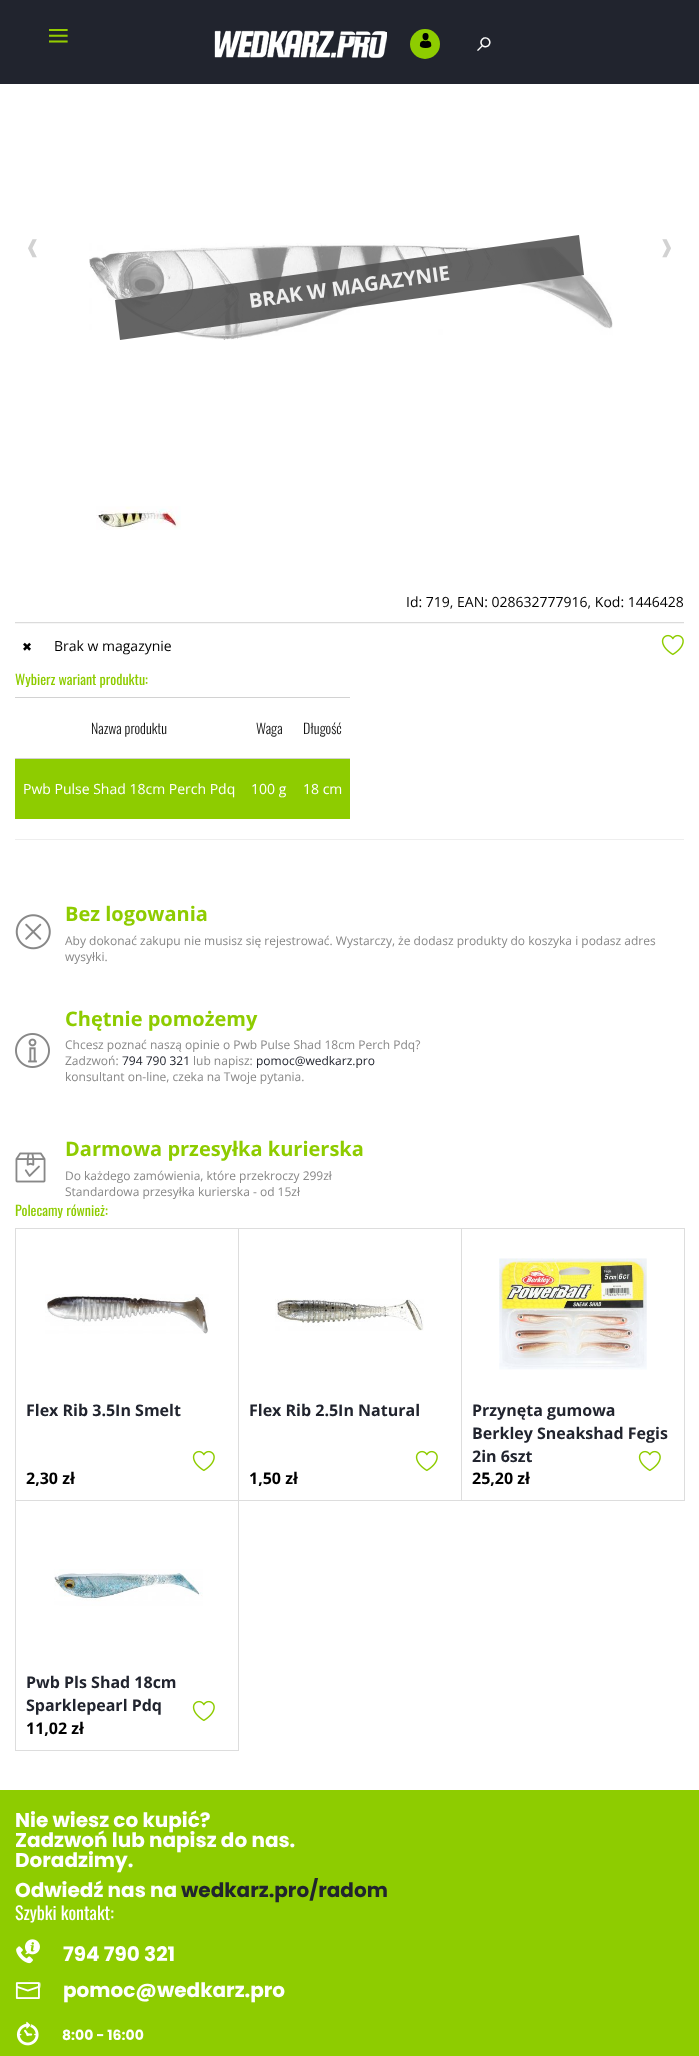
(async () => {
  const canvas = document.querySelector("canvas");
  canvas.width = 699;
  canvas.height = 2056;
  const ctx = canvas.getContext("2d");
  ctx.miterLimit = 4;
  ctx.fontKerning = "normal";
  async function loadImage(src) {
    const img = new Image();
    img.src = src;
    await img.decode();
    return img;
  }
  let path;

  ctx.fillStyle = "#ffffff";
  ctx.fillRect(0, 0, 699, 2056);
  ctx.fillStyle = "#21242e";
  ctx.fillRect(0, 0, 699, 84);
  ctx.drawImage(await loadImage("img/1.png"), 214, 30, 173, 28);
  ctx.fillStyle = "#8ecc00";
  ctx.beginPath();
  ctx.arc(425, 44, 15, 0, Math.PI * 2);
  ctx.fill();
  ctx.drawImage(await loadImage("img/2.png"), 419, 33, 13, 15);
  ctx.drawImage(await loadImage("img/3.png"), 89, 243, 524, 97);
  ctx.fillStyle = "rgba(83, 83, 83, 0.9)";
  path = new Path2D("M115 300L579 235L584 275L120 340Z");
  ctx.fill(path);
  ctx.drawImage(await loadImage("img/4.png"), 96, 506, 85, 24);
  ctx.fillStyle = "#dbdbdb";
  ctx.fillRect(15, 622, 669, 1);
  ctx.fillStyle = "#f6f6f6";
  ctx.fillRect(15, 623, 669, 1);
  ctx.drawImage(await loadImage("img/5.png"), 661, 634, 23, 22);
  for (const [x, y, w, h, color] of [
    [15, 697, 335, 1, "#d2d2d2"],
    [15, 758, 335, 1, "#d2d2d2"],
    [15, 759, 335, 60, "#8ecc00"],
    [15, 839, 669, 1, "#eeeeee"],
  ]) {
    ctx.fillStyle = color;
    ctx.fillRect(x, y, w, h);
  }
  ctx.drawImage(await loadImage("img/6.png"), 15, 914, 36, 36);
  ctx.drawImage(await loadImage("img/7.png"), 15, 1033, 35, 35);
  ctx.drawImage(await loadImage("img/8.png"), 15, 1152, 31, 31);
  ctx.strokeStyle = "#dddddd";
  ctx.strokeRect(15.5, 1228.5, 223, 272);
  ctx.drawImage(await loadImage("img/9.png"), 45, 1294, 164, 40);
  ctx.drawImage(await loadImage("img/5.png"), 192, 1450, 23, 22);
  ctx.strokeRect(238.5, 1228.5, 223, 272);
  ctx.drawImage(await loadImage("img/10.png"), 275, 1298, 149, 33);
  ctx.drawImage(await loadImage("img/5.png"), 415, 1450, 23, 22);
  ctx.strokeRect(461.5, 1228.5, 223, 272);
  ctx.drawImage(await loadImage("img/11.png"), 499, 1258, 148, 112);
  ctx.drawImage(await loadImage("img/5.png"), 638, 1450, 23, 22);
  ctx.strokeRect(15.5, 1500.5, 223, 250);
  ctx.drawImage(await loadImage("img/12.png"), 54, 1569, 149, 37);
  ctx.drawImage(await loadImage("img/5.png"), 192, 1700, 23, 22);
  ctx.fillStyle = "#8ecc00";
  ctx.fillRect(0, 1790, 699, 266);
  ctx.drawImage(await loadImage("img/13.png"), 16, 1939, 24, 25);
  ctx.drawImage(await loadImage("img/14.png"), 15, 1980, 26, 19);
  ctx.drawImage(await loadImage("img/15.png"), 16, 2021, 23, 25);
  ctx.font = "40px Liberation Serif";
  ctx.fillStyle = "#94cc00";
  ctx.fillText("≡", 47, 49);
  ctx.font = "30px FreeSerif";
  ctx.fillStyle = "#ffffff";
  ctx.fillText("⌕", 477, 51);
  ctx.font = "18px DejaVu Sans";
  ctx.fillStyle = "#d2d2d2";
  ctx.fillText("❰", 25, 253);
  ctx.fillText("❱", 659, 253);
  ctx.font = "bold 20px Open Sans";
  ctx.fillStyle = "#efefef";
  ctx.save();
  ctx.translate(250, 308);
  ctx.rotate(-8 * Math.PI / 180);
  ctx.fillText("BRAK W MAGAZYNIE", 0, 0);
  ctx.restore();
  ctx.font = "14px Open Sans";
  ctx.fillStyle = "#000000";
  ctx.fillText("Id: 719, EAN: 028632777916, Kod: 1446428", 406, 607);
  ctx.font = "12px DejaVu Sans";
  ctx.fillText("✖", 22, 651);
  ctx.font = "14px Open Sans";
  ctx.fillText("Brak w magazynie", 54, 651);
  ctx.font = "14px Oswald";
  ctx.fillStyle = "#8ecc00";
  ctx.fillText("Wybierz wariant produktu:", 15, 685);
  ctx.font = "300 14px Oswald";
  ctx.fillStyle = "#111111";
  for (const [text, x, y] of [
    ["Nazwa produktu", 91, 734],
    ["Waga", 256, 734],
    ["Długość", 303, 734],
  ]) {
    ctx.fillText(text, x, y);
  }
  ctx.font = "14px Open Sans";
  ctx.fillStyle = "#ffffff";
  for (const [text, x, y] of [
    ["Pwb Pulse Shad 18cm Perch Pdq", 23, 794],
    ["100 g", 251, 794],
    ["18 cm", 303, 794],
  ]) {
    ctx.fillText(text, x, y);
  }
  ctx.font = "bold 20px Open Sans";
  ctx.fillStyle = "#8ecc00";
  ctx.fillText("Bez logowania", 65, 921);
  ctx.font = "12px Open Sans";
  ctx.fillStyle = "#888888";
  ctx.fillText("Aby dokonać zakupu nie musisz się rejestrować. Wystarczy, że dodasz produkty do koszyka i podasz adres", 65, 945);
  ctx.fillText("wysyłki.", 65, 961);
  ctx.font = "bold 20px Open Sans";
  ctx.fillStyle = "#8ecc00";
  ctx.fillText("Chętnie pomożemy", 65, 1026);
  ctx.font = "12px Open Sans";
  ctx.fillStyle = "#888888";
  ctx.fillText("Chcesz poznać naszą opinie o Pwb Pulse Shad 18cm Perch Pdq?", 65, 1049);
  ctx.fillText("Zadzwoń:", 65, 1065);
  ctx.fillStyle = "#21242e";
  ctx.fillText("794 790 321", 122, 1065);
  ctx.fillStyle = "#888888";
  ctx.fillText("lub napisz:", 193, 1065);
  ctx.fillStyle = "#21242e";
  ctx.fillText("pomoc@wedkarz.pro", 256, 1065);
  ctx.fillStyle = "#888888";
  ctx.fillText("konsultant on-line, czeka na Twoje pytania.", 65, 1081);
  ctx.font = "bold 20px Open Sans";
  ctx.fillStyle = "#8ecc00";
  ctx.fillText("Darmowa przesyłka kurierska", 65, 1156);
  ctx.font = "12px Open Sans";
  ctx.fillStyle = "#888888";
  ctx.fillText("Do każdego zamówienia, które przekroczy 299zł", 65, 1180);
  ctx.fillText("Standardowa przesyłka kurierska - od 15zł", 65, 1196);
  ctx.font = "14px Oswald";
  ctx.fillStyle = "#8ecc00";
  ctx.fillText("Polecamy również:", 15, 1216);
  ctx.font = "bold 16px Open Sans";
  ctx.fillStyle = "#21242e";
  ctx.fillText("Flex Rib 3.5In Smelt", 26, 1416);
  ctx.fillStyle = "#000000";
  ctx.fillText("2,30 zł", 26, 1484);
  ctx.fillStyle = "#21242e";
  ctx.fillText("Flex Rib 2.5In Natural", 249, 1416);
  ctx.fillStyle = "#000000";
  ctx.fillText("1,50 zł", 249, 1484);
  ctx.fillStyle = "#21242e";
  for (const [text, x, y] of [
    ["Przynęta gumowa", 472, 1416],
    ["Berkley Sneakshad Fegis", 472, 1439],
    ["2in 6szt", 472, 1462],
  ]) {
    ctx.fillText(text, x, y);
  }
  ctx.fillStyle = "#000000";
  ctx.fillText("25,20 zł", 472, 1484);
  ctx.fillStyle = "#21242e";
  ctx.fillText("Pwb Pls Shad 18cm", 26, 1688);
  ctx.fillText("Sparklepearl Pdq", 26, 1711);
  ctx.fillStyle = "#000000";
  ctx.fillText("11,02 zł", 26, 1734);
  ctx.font = "bold 20px Poppins";
  ctx.fillStyle = "#ffffff";
  for (const [text, x, y] of [
    ["Nie wiesz co kupić?", 15, 1827],
    ["Zadzwoń lub napisz do nas.", 15, 1847],
    ["Doradzimy.", 15, 1867],
    ["Odwiedź nas na", 15, 1897],
  ]) {
    ctx.fillText(text, x, y);
  }
  ctx.fillStyle = "#21242e";
  ctx.fillText("wedkarz.pro/radom", 181, 1897);
  ctx.font = "18px Oswald";
  ctx.fillStyle = "#ffffff";
  ctx.fillText("Szybki kontakt:", 15, 1920);
  ctx.font = "bold 20px Poppins";
  ctx.fillText("794 790 321", 63, 1961);
  ctx.fillText("pomoc@wedkarz.pro", 63, 1997);
  ctx.font = "bold 14px Poppins";
  ctx.fillText("8:00 - 16:00", 62, 2040);
})();
